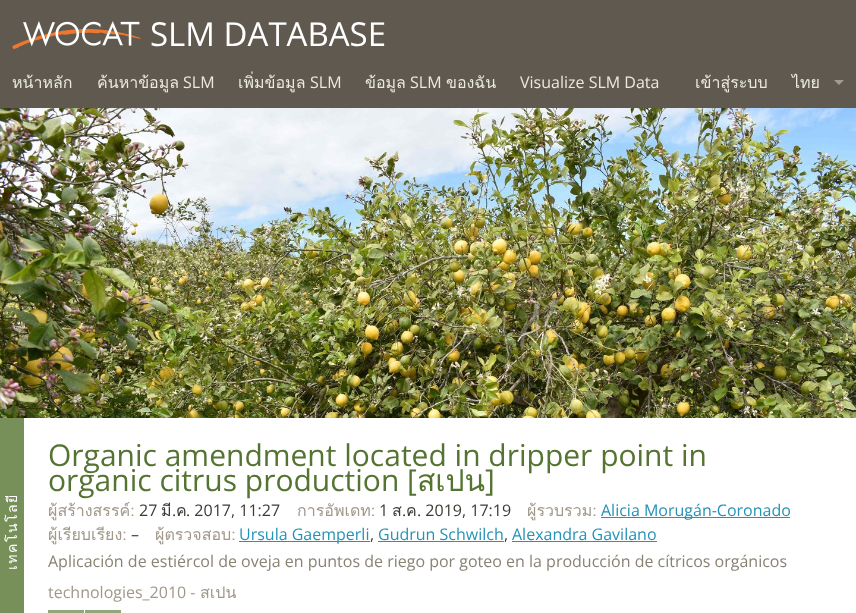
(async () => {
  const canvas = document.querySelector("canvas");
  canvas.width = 856;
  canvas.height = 613;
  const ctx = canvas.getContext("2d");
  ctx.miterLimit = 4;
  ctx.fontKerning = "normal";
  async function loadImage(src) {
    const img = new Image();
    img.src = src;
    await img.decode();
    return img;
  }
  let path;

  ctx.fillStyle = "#5f594f";
  ctx.fillRect(0, 0, 856, 613);
  ctx.drawImage(await loadImage("img/1.png"), 12, 21, 129, 28);
  ctx.fillStyle = "#9f9b95";
  path = new Path2D("M834 80H844L839 85Z");
  ctx.fill(path);
  ctx.drawImage(await loadImage("img/2.png"), 0, 108, 856, 310);
  for (const [x, y, w, h, color] of [
    [24, 418, 832, 195, "#ffffff"],
    [0, 418, 24, 195, "#77905a"],
    [601, 517, 189, 1, "#2592b7"],
    [239, 541, 131, 1, "#2592b7"],
    [378, 541, 126, 1, "#2592b7"],
    [512, 541, 145, 1, "#2592b7"],
    [48, 610, 36, 3, "#92a67b"],
    [85, 610, 36, 3, "#92a67b"],
  ]) {
    ctx.fillStyle = color;
    ctx.fillRect(x, y, w, h);
  }
  ctx.font = "33px Open Sans";
  ctx.fillStyle = "#ffffff";
  ctx.fillText("SLM DATABASE", 150, 46);
  ctx.font = "16px Loma";
  ctx.fillStyle = "#eae8df";
  ctx.fillText("หน้าหลัก", 12, 88);
  ctx.fillText("ค้นหาข้อมูล", 97, 88);
  ctx.font = "16px Open Sans";
  ctx.fillText("SLM", 183, 88);
  ctx.font = "16px Loma";
  ctx.fillText("เพิ่มข้อมูล", 238, 88);
  ctx.font = "16px Open Sans";
  ctx.fillText("SLM", 310, 88);
  ctx.font = "16px Loma";
  ctx.fillText("ข้อมูล", 365, 88);
  ctx.font = "16px Open Sans";
  ctx.fillText("SLM", 410, 88);
  ctx.font = "16px Loma";
  ctx.fillText("ของฉัน", 446, 88);
  ctx.font = "16px Open Sans";
  ctx.fillText("Visualize SLM Data", 520, 88);
  ctx.font = "16px Loma";
  ctx.fillText("เข้าสู่ระบบ", 695, 88);
  ctx.fillText("ไทย", 792, 88);
  ctx.font = "30px Open Sans";
  ctx.fillStyle = "#557431";
  ctx.fillText("Organic amendment located in dripper point in", 48, 466);
  ctx.fillText("organic citrus production [", 48, 491);
  ctx.font = "30px Loma";
  ctx.fillText("สเปน", 417, 491);
  ctx.font = "30px Open Sans";
  ctx.fillText("]", 485, 491);
  ctx.letterSpacing = "1.5px";
  ctx.font = "14px Loma";
  ctx.fillStyle = "#ffffff";
  ctx.save();
  ctx.translate(17, 570);
  ctx.rotate(-90 * Math.PI / 180);
  ctx.fillText("เทคโนโลยี", 0, 0);
  ctx.restore();
  ctx.letterSpacing = "0px";
  ctx.font = "16px Loma";
  ctx.fillStyle = "#a09889";
  ctx.fillText("ผู้สร้างสรรค์:", 48, 516);
  ctx.font = "16px Open Sans";
  ctx.fillStyle = "#3e3b34";
  ctx.fillText("27", 139, 516);
  ctx.font = "16px Loma";
  ctx.fillText("มี", 161, 516);
  ctx.font = "16px Open Sans";
  ctx.fillText(".", 172, 516);
  ctx.font = "16px Loma";
  ctx.fillText("ค", 176, 516);
  ctx.font = "16px Open Sans";
  ctx.fillText(". 2017, 11:27", 186, 516);
  ctx.font = "16px Loma";
  ctx.fillStyle = "#a09889";
  ctx.fillText("การอัพเดท:", 297, 516);
  ctx.font = "16px Open Sans";
  ctx.fillStyle = "#3e3b34";
  ctx.fillText("1", 379, 516);
  ctx.font = "16px Loma";
  ctx.fillText("ส", 392, 516);
  ctx.font = "16px Open Sans";
  ctx.fillText(".", 402, 516);
  ctx.font = "16px Loma";
  ctx.fillText("ค", 406, 516);
  ctx.font = "16px Open Sans";
  ctx.fillText(". 2019, 17:19", 417, 516);
  ctx.font = "16px Loma";
  ctx.fillStyle = "#a09889";
  ctx.fillText("ผู้รวบรวม:", 527, 516);
  ctx.font = "16px Open Sans";
  ctx.fillStyle = "#2592b7";
  ctx.fillText("Alicia Morugán-Coronado", 601, 516);
  ctx.font = "16px Loma";
  ctx.fillStyle = "#a09889";
  ctx.fillText("ผู้เรียบเรียง:", 48, 540);
  ctx.font = "16px Open Sans";
  ctx.fillStyle = "#3e3b34";
  ctx.fillText("–", 131, 540);
  ctx.font = "16px Loma";
  ctx.fillStyle = "#a09889";
  ctx.fillText("ผู้ตรวจสอบ:", 155, 540);
  ctx.font = "16px Open Sans";
  ctx.fillStyle = "#2592b7";
  ctx.fillText("Ursula Gaemperli", 239, 540);
  ctx.fillStyle = "#3e3b34";
  ctx.fillText(",", 370, 540);
  ctx.fillStyle = "#2592b7";
  ctx.fillText("Gudrun Schwilch", 378, 540);
  ctx.fillStyle = "#3e3b34";
  ctx.fillText(",", 504, 540);
  ctx.fillStyle = "#2592b7";
  ctx.fillText("Alexandra Gavilano", 512, 540);
  ctx.fillStyle = "#898373";
  ctx.fillText("Aplicación de estiércol de oveja en puntos de riego por goteo en la producción de cítricos orgánicos", 48, 567);
  ctx.fillStyle = "#a09889";
  ctx.fillText("technologies_2010 -", 48, 598);
  ctx.font = "16px Loma";
  ctx.fillText("สเปน", 200, 598);
})();
